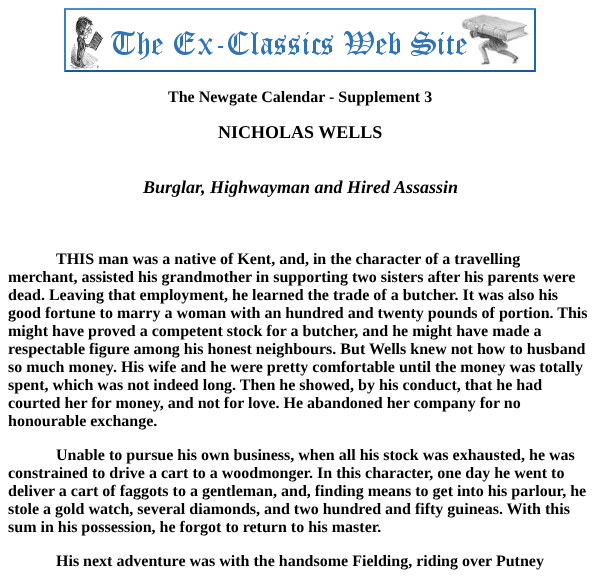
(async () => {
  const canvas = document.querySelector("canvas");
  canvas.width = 600;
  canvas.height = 576;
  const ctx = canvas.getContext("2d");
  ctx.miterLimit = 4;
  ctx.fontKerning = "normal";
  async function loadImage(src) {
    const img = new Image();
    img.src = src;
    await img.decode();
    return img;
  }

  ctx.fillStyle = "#ffffff";
  ctx.fillRect(0, 0, 600, 576);
  ctx.drawImage(await loadImage("img/1.png"), 64, 8, 472, 64);
  ctx.font = "bold 16px Liberation Serif";
  ctx.fillStyle = "#000000";
  ctx.fillText("The Newgate Calendar - Supplement 3", 168, 102);
  ctx.font = "bold 18px Liberation Serif";
  ctx.fillText("NICHOLAS WELLS", 218, 138);
  ctx.font = "italic bold 18px Liberation Serif";
  ctx.fillText("Burglar, Highwayman and Hired Assassin", 143, 193);
  ctx.font = "bold 16px Liberation Serif";
  for (const [text, x, y] of [
    ["THIS man was a native of Kent, and, in the character of a travelling", 56, 264],
    ["merchant, assisted his grandmother in supporting two sisters after his parents were", 8, 282],
    ["dead. Leaving that employment, he learned the trade of a butcher. It was also his", 8, 300],
    ["good fortune to marry a woman with an hundred and twenty pounds of portion. This", 8, 318],
    ["might have proved a competent stock for a butcher, and he might have made a", 8, 336],
    ["respectable figure among his honest neighbours. But Wells knew not how to husband", 8, 354],
    ["so much money. His wife and he were pretty comfortable until the money was totally", 8, 372],
    ["spent, which was not indeed long. Then he showed, by his conduct, that he had", 8, 390],
    ["courted her for money, and not for love. He abandoned her company for no", 8, 408],
    ["honourable exchange.", 8, 426],
    ["Unable to pursue his own business, when all his stock was exhausted, he was", 56, 460],
    ["constrained to drive a cart to a woodmonger", 8, 478],
    [". In this character, one day he went to", 309, 478],
    ["deliver a cart of faggots to a gentleman, and, finding means to get into his parlour, he", 8, 496],
    ["stole a gold watch, several diamonds, and two hundred and fifty guineas. With this", 8, 514],
    ["sum in his possession, he forgot to return to his master.", 8, 532],
    ["His next adventure was with the handsome Fielding, riding over Putney", 56, 566],
  ]) {
    ctx.fillText(text, x, y);
  }
})();
